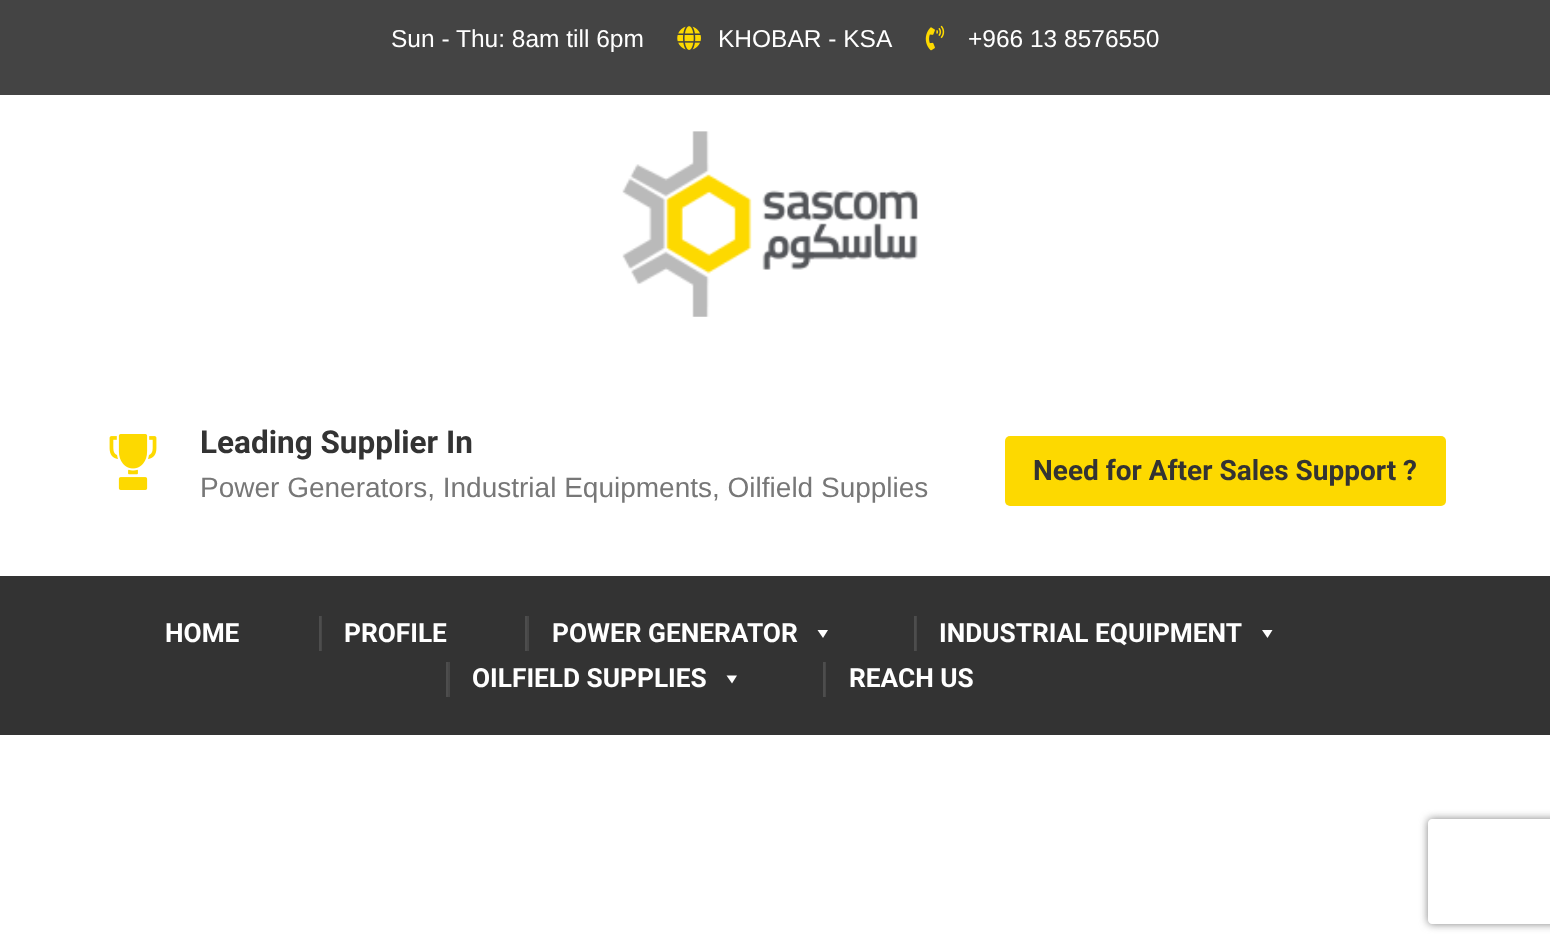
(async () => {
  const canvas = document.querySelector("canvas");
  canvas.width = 1550;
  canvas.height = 947;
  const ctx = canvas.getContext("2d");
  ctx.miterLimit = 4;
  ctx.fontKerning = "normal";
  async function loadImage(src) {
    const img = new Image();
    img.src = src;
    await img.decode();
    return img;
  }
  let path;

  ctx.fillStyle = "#ffffff";
  ctx.fillRect(0, 0, 1550, 947);
  ctx.fillStyle = "#444444";
  ctx.fillRect(0, 0, 1550, 95);
  ctx.drawImage(await loadImage("img/1.png"), 677, 26, 24, 24);
  ctx.drawImage(await loadImage("img/2.png"), 925, 25, 20, 26);
  ctx.drawImage(await loadImage("img/3.png"), 622, 131, 296, 186);
  ctx.drawImage(await loadImage("img/4.png"), 109, 434, 48, 56);
  ctx.fillStyle = "#fdd900";
  ctx.beginPath();
  ctx.roundRect(1005, 436, 441, 70, 5);
  ctx.fill();
  for (const [x, y, w, h, color] of [
    [0, 576, 1550, 159, "#333333"],
    [321, 616, 1, 35, "#474747"],
    [319, 616, 2, 35, "#4d4d4d"],
    [527, 616, 2, 35, "#474747"],
    [525, 616, 2, 35, "#4d4d4d"],
  ]) {
    ctx.fillStyle = color;
    ctx.fillRect(x, y, w, h);
  }
  ctx.fillStyle = "#ffffff";
  path = new Path2D("M828 630L823 638L817.5 630Z");
  ctx.fill(path);
  ctx.fillStyle = "#474747";
  ctx.fillRect(916, 616, 1, 35);
  ctx.fillStyle = "#4d4d4d";
  ctx.fillRect(914, 616, 2, 35);
  ctx.fillStyle = "#ffffff";
  path = new Path2D("M1272.5 630L1267.5 638L1262 630Z");
  ctx.fill(path);
  ctx.fillStyle = "#474747";
  ctx.fillRect(448, 662, 2, 35);
  ctx.fillStyle = "#4d4d4d";
  ctx.fillRect(446, 662, 2, 35);
  ctx.fillStyle = "#ffffff";
  path = new Path2D("M737 675.5L732 683.5L726.5 675.5Z");
  ctx.fill(path);
  ctx.fillStyle = "#474747";
  ctx.fillRect(825, 662, 1, 35);
  ctx.fillStyle = "#4d4d4d";
  ctx.fillRect(823, 662, 2, 35);
  ctx.save();
  path = new Path2D("M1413 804H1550V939H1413ZM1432 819H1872C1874 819 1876 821 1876 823V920C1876 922 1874 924 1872 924H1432C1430 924 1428 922 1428 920V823C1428 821 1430 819 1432 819Z");
  ctx.clip(path, "evenodd");
  ctx.fillStyle = "#808080";
  ctx.filter = "blur(4.5px)";
  ctx.beginPath();
  ctx.roundRect(1428, 819, 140, 105, 4);
  ctx.fill();
  ctx.filter = "none";
  ctx.restore();
  ctx.font = "24.5px Liberation Sans";
  ctx.fillStyle = "#ffffff";
  for (const [text, x, y] of [
    ["Sun - Thu: 8am till 6pm", 391, 47],
    ["KHOBAR - KSA", 718, 47],
    ["+966 13 8576550", 968, 47],
  ]) {
    ctx.fillText(text, x, y);
  }
  ctx.font = "bold 31.5px Roboto";
  ctx.fillStyle = "#333333";
  ctx.fillText("Leading Supplier In", 200, 453);
  ctx.font = "28px Liberation Sans";
  ctx.fillStyle = "#777777";
  ctx.fillText("Power Generators, Industrial Equipments, Oilfield Supplies", 200, 497);
  ctx.font = "bold 28px Roboto";
  ctx.fillStyle = "#333333";
  ctx.fillText("Need for After Sales Support ?", 1033, 480);
  ctx.font = "bold 26.25px Roboto";
  ctx.fillStyle = "#ffffff";
  for (const [text, x, y] of [
    ["HOME", 165, 642],
    ["PROFILE", 344, 642],
    ["POWER GENERATOR", 552, 642],
    ["INDUSTRIAL EQUIPMENT", 939, 642],
    ["OILFIELD SUPPLIES", 472, 687],
    ["REACH US", 849, 687],
  ]) {
    ctx.fillText(text, x, y);
  }
})();
